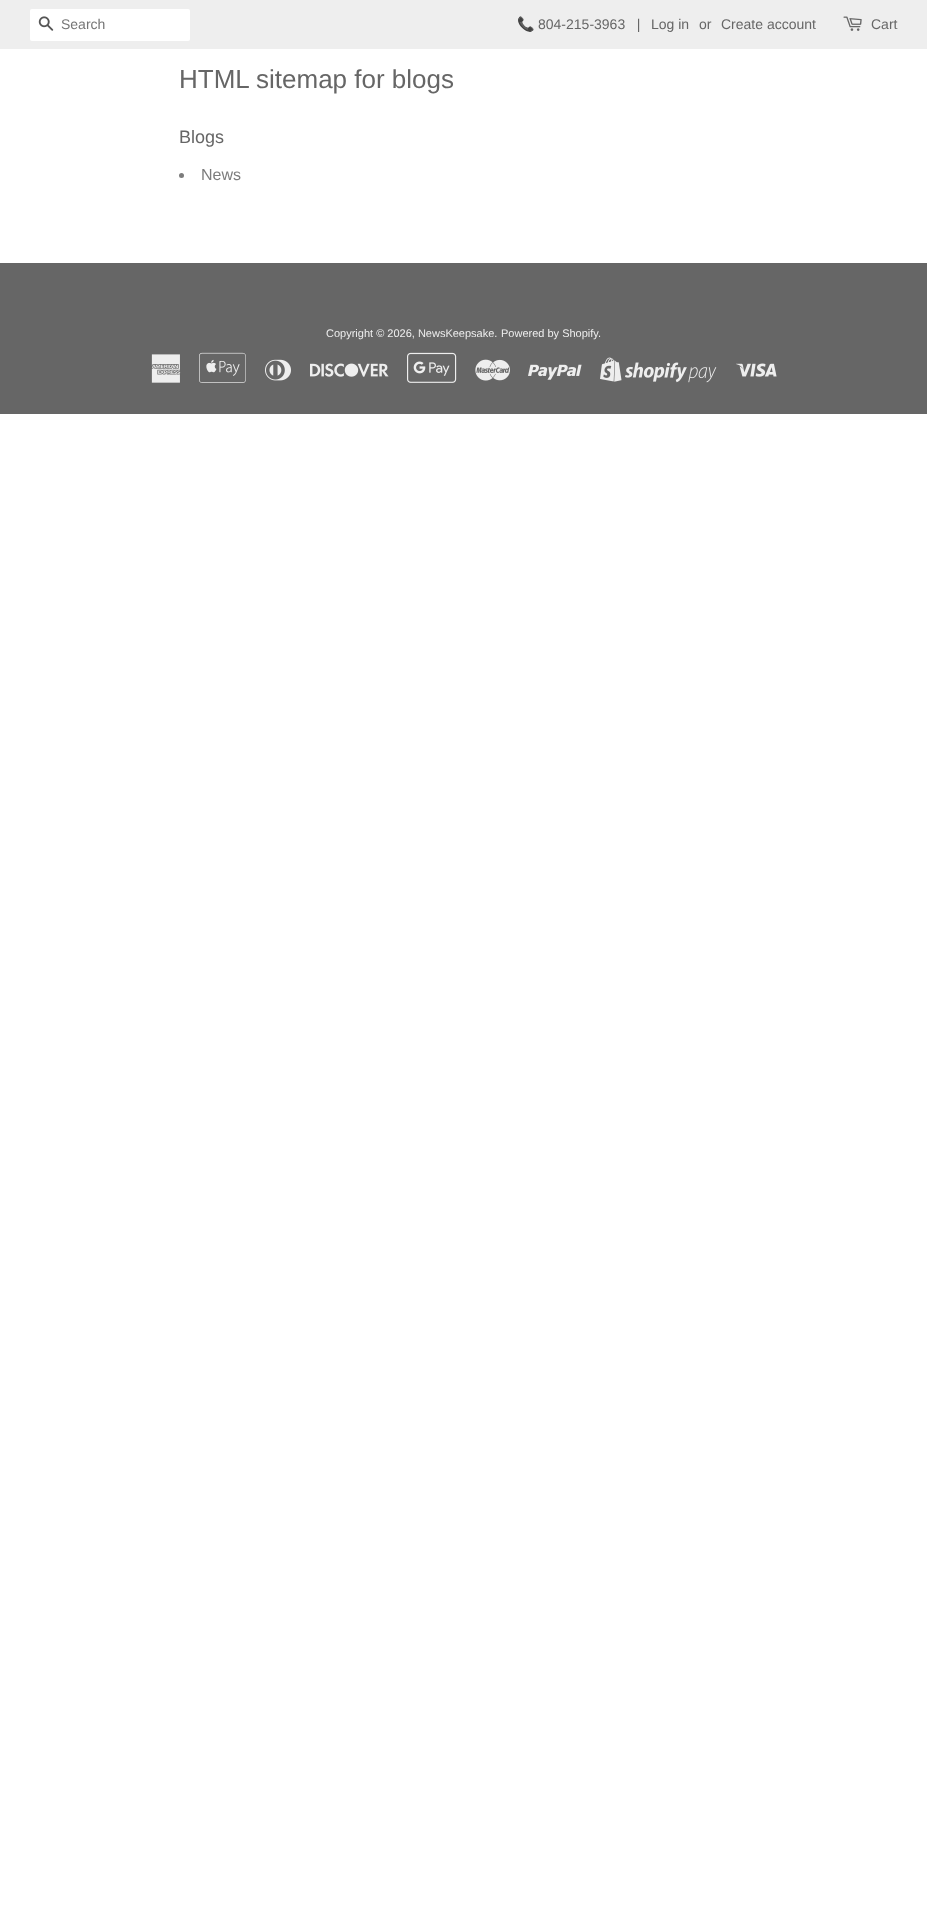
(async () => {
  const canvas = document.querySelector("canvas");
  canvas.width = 927;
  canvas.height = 1917;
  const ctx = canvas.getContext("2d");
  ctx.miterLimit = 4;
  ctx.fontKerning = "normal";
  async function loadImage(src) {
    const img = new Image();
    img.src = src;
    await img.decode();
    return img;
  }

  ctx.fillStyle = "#ffffff";
  ctx.fillRect(0, 0, 927, 1917);
  ctx.fillStyle = "#eeeeee";
  ctx.fillRect(0, 0, 927, 49);
  ctx.fillStyle = "#ffffff";
  ctx.beginPath();
  ctx.roundRect(30, 9, 160, 32, 2);
  ctx.fill();
  ctx.drawImage(await loadImage("img/1.png"), 38, 16, 16, 15);
  ctx.drawImage(await loadImage("img/2.png"), 843, 16, 19, 15);
  ctx.fillStyle = "#7c7c7c";
  ctx.beginPath();
  ctx.arc(181.5, 175.5, 2.5, 0, Math.PI * 2);
  ctx.fill();
  ctx.fillStyle = "#666666";
  ctx.fillRect(0, 263, 927, 151);
  ctx.drawImage(await loadImage("img/3.png"), 151, 354, 30, 29);
  ctx.drawImage(await loadImage("img/4.png"), 199, 352, 47, 31);
  ctx.drawImage(await loadImage("img/5.png"), 265, 359, 26, 22);
  ctx.drawImage(await loadImage("img/6.png"), 310, 363, 79, 14);
  ctx.drawImage(await loadImage("img/7.png"), 407, 352, 50, 31);
  ctx.drawImage(await loadImage("img/8.png"), 475, 359, 35, 22);
  ctx.drawImage(await loadImage("img/9.png"), 528, 364, 54, 16);
  ctx.drawImage(await loadImage("img/10.png"), 600, 357, 117, 26);
  ctx.drawImage(await loadImage("img/11.png"), 736, 363, 41, 14);
  ctx.font = "14px Liberation Sans";
  ctx.fillStyle = "#757575";
  ctx.fillText("Search", 61, 29);
  ctx.font = "14px Noto Color Emoji";
  ctx.fillStyle = "#666666";
  ctx.fillText("📞", 517, 29);
  ctx.font = "14px Liberation Sans";
  for (const [text, x, y] of [
    ["804-215-3963   |", 538, 29],
    ["Log in", 651, 29],
    ["or", 699, 29],
    ["Create account", 721, 29],
    ["Cart", 871, 29],
  ]) {
    ctx.fillText(text, x, y);
  }
  ctx.font = "26px Liberation Sans";
  ctx.fillText("HTML sitemap for blogs", 179, 88);
  ctx.font = "18px Liberation Sans";
  ctx.fillText("Blogs", 179, 143);
  ctx.font = "16px Liberation Sans";
  ctx.fillStyle = "#7c7c7c";
  ctx.fillText("News", 201, 180);
  ctx.font = "11px Liberation Sans";
  ctx.fillStyle = "#eeeeee";
  for (const [text, x, y] of [
    ["Copyright © 2026, NewsKeepsake.", 326, 337],
    ["Powered by Shopify", 501, 337],
    [".", 598, 337],
  ]) {
    ctx.fillText(text, x, y);
  }
})();
